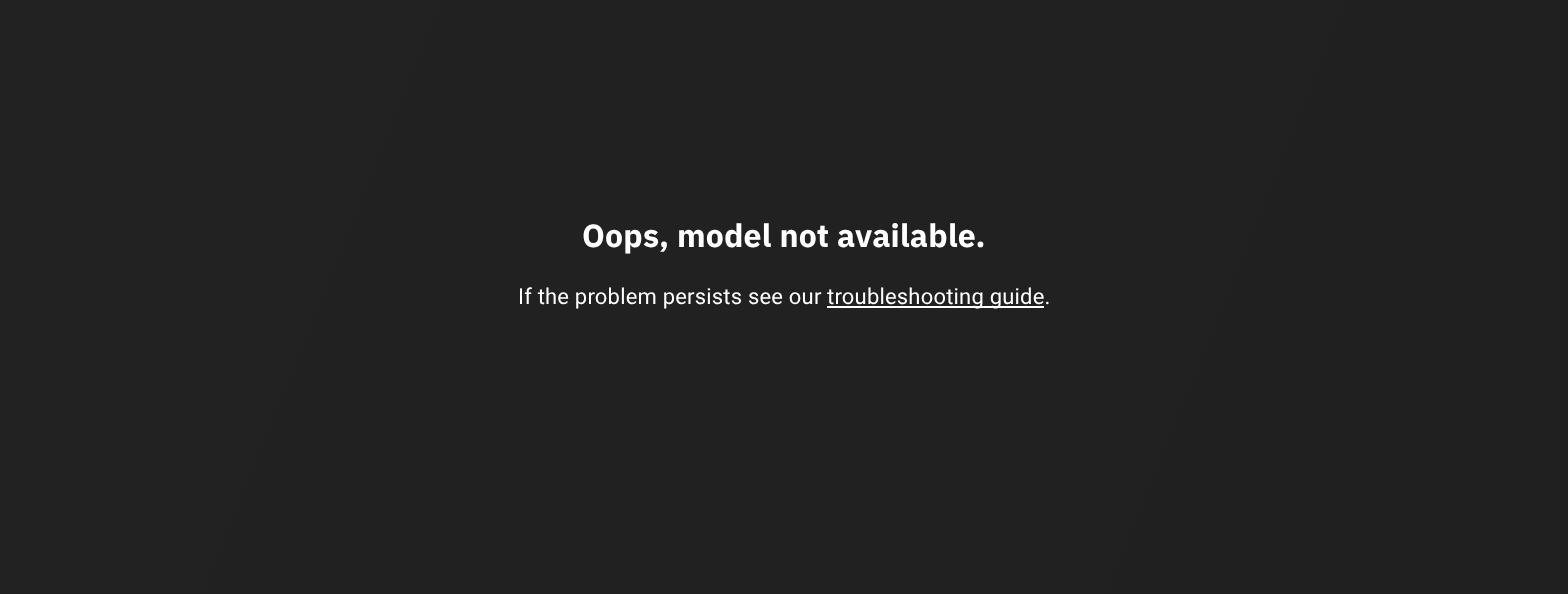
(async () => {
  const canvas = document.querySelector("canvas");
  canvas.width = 1568;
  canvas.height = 594;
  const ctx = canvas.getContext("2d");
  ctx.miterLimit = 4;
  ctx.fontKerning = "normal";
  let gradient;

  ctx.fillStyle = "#ffffff";
  ctx.fillRect(0, 0, 1568, 594);
  gradient = ctx.createLinearGradient(6.9, -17, 1561, 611);
  gradient.addColorStop(0, "#222222");
  gradient.addColorStop(1, "#202020");
  ctx.fillStyle = gradient;
  ctx.fillRect(0, 0, 1568, 594);
  ctx.fillStyle = "#ffffff";
  ctx.fillRect(827, 306, 217, 2);
  ctx.letterSpacing = "0.2px";
  ctx.font = "bold 32px IBM Plex Sans";
  ctx.fillText("Oops, model not available.", 582, 247);
  ctx.font = "22px Roboto";
  ctx.fillText("If the problem persists see our", 518, 304);
  ctx.fillText("troubleshooting guide.", 827, 304);
})();
